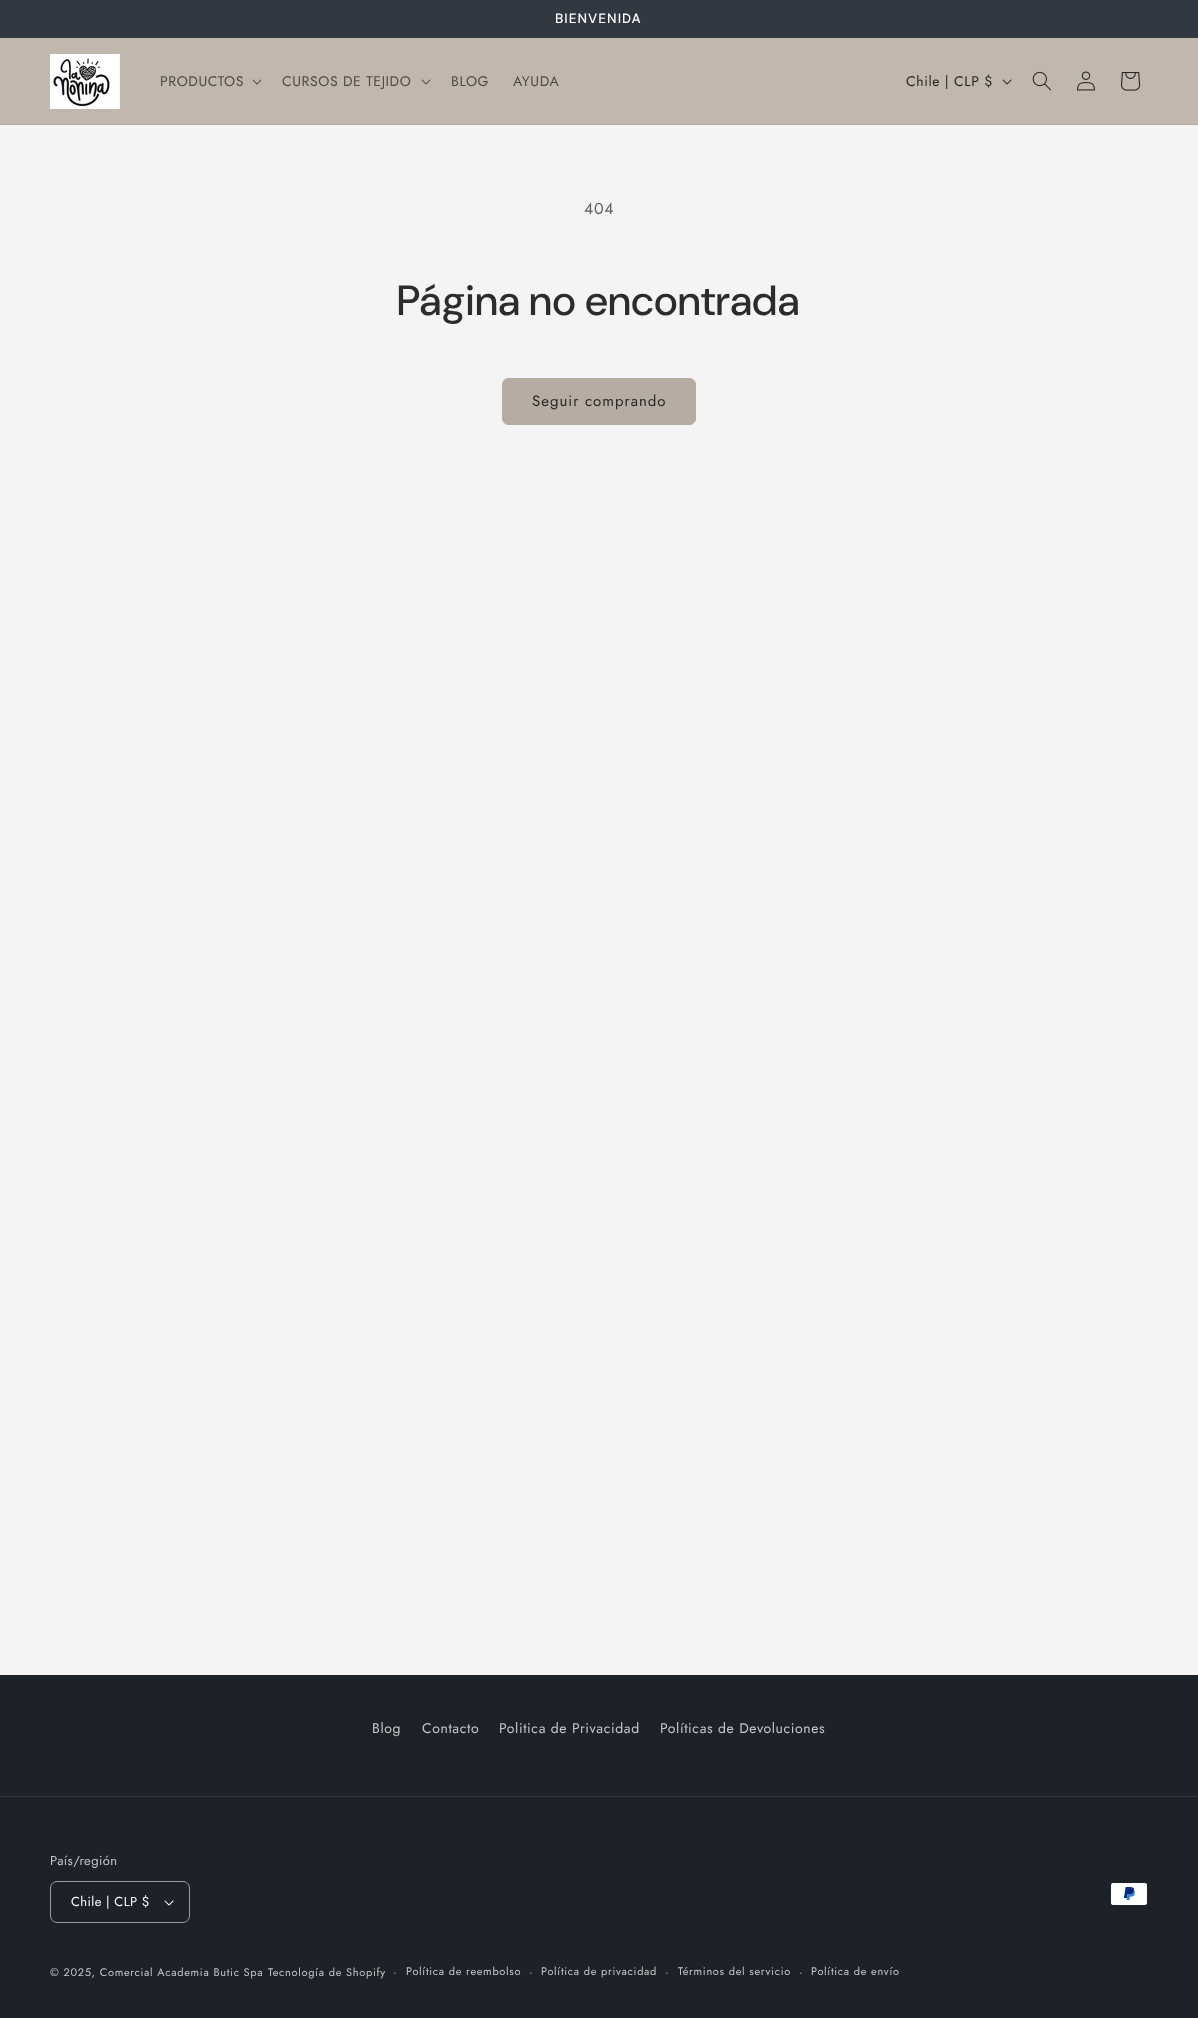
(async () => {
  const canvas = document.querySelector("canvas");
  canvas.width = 1198;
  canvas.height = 2018;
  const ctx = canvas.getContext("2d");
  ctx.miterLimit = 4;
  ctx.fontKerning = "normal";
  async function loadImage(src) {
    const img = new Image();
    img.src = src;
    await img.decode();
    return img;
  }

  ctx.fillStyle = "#f4f4f4";
  ctx.fillRect(0, 0, 1198, 2018);
  for (const [x, y, w, h, color] of [
    [0, 0, 1198, 38, "#323841"],
    [0, 38, 1198, 86, "#c2b7ac"],
    [0, 124, 1198, 1, "#b6aba1"],
  ]) {
    ctx.fillStyle = color;
    ctx.fillRect(x, y, w, h);
  }
  ctx.drawImage(await loadImage("img/1.png"), 50, 54, 70, 55);
  ctx.drawImage(await loadImage("img/2.png"), 252, 79, 10, 6);
  ctx.drawImage(await loadImage("img/2.png"), 421, 79, 10, 6);
  ctx.drawImage(await loadImage("img/3.png"), 1002, 79, 10, 6);
  ctx.drawImage(await loadImage("img/4.png"), 1032, 71, 19, 20);
  ctx.drawImage(await loadImage("img/5.png"), 1077, 71, 18, 20);
  ctx.drawImage(await loadImage("img/6.png"), 1121, 72, 20, 19);
  ctx.fillStyle = "#b7aca2";
  ctx.beginPath();
  ctx.roundRect(502, 378, 194, 47, 7);
  ctx.fill();
  ctx.beginPath();
  ctx.roundRect(502.5, 378.5, 193, 46, 6.5);
  ctx.strokeStyle = "#b7aca2";
  ctx.stroke();
  ctx.fillStyle = "#1c2228";
  ctx.fillRect(0, 1675, 1198, 343);
  ctx.fillStyle = "#2e3439";
  ctx.fillRect(0, 1796, 1198, 1);
  ctx.drawImage(await loadImage("img/7.png"), 164, 1900, 10, 6);
  ctx.beginPath();
  ctx.roundRect(50.5, 1881.5, 139, 41, 6.5);
  ctx.strokeStyle = "#999c9e";
  ctx.stroke();
  ctx.drawImage(await loadImage("img/8.png"), 1111, 1883, 36, 22);
  ctx.letterSpacing = "1px";
  ctx.font = "500 13.5px 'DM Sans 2'";
  ctx.fillStyle = "#ffffff";
  ctx.fillText("BIENVENIDA", 555, 23);
  ctx.letterSpacing = "0.6px";
  ctx.font = "14px Jost";
  ctx.fillStyle = "#4d4a48";
  for (const [text, x, y] of [
    ["PRODUCTOS", 160, 86],
    ["CURSOS DE TEJIDO", 282, 86],
    ["BLOG", 451, 86],
    ["AYUDA", 513, 86],
  ]) {
    ctx.fillText(text, x, y);
  }
  ctx.fillStyle = "#262626";
  ctx.fillText("Chile | CLP $", 906, 86);
  ctx.font = "16px Jost";
  ctx.fillStyle = "#5d5e5f";
  ctx.fillText("404", 584, 214);
  ctx.font = "500 42px DM Sans";
  ctx.fillStyle = "#2b2c2d";
  ctx.fillText("Página no encontrada", 397, 315);
  ctx.letterSpacing = "1px";
  ctx.font = "15px Jost";
  ctx.fillStyle = "#262626";
  ctx.fillText("Seguir comprando", 532, 406);
  ctx.letterSpacing = "0.6px";
  ctx.font = "14px Jost";
  ctx.fillStyle = "#c6c8c9";
  for (const [text, x, y] of [
    ["Blog", 372, 1733],
    ["Contacto", 422, 1733],
    ["Politica de Privacidad", 499, 1733],
    ["Políticas de Devoluciones", 660, 1733],
  ]) {
    ctx.fillText(text, x, y);
  }
  ctx.letterSpacing = "0.4px";
  ctx.font = "13px Jost";
  ctx.fillText("País/región", 50, 1865);
  ctx.fillStyle = "#ffffff";
  ctx.fillText("Chile | CLP $", 71, 1906);
  ctx.letterSpacing = "0.7px";
  ctx.font = "11px Jost";
  ctx.fillStyle = "#c6c8c9";
  ctx.fillText("© 2025, Comercial Academia Butic Spa", 50, 1976);
  ctx.fillText("Tecnología de Shopify", 268, 1976);
  ctx.font = "12px Jost";
  ctx.fillText("·", 393, 1976);
  ctx.font = "11px Jost";
  ctx.fillText("Política de reembolso", 406, 1975);
  ctx.font = "12px Jost";
  ctx.fillText("·", 529, 1976);
  ctx.font = "11px Jost";
  ctx.fillText("Política de privacidad", 541, 1975);
  ctx.font = "12px Jost";
  ctx.fillText("·", 665, 1976);
  ctx.font = "11px Jost";
  ctx.fillText("Términos del servicio", 678, 1975);
  ctx.font = "12px Jost";
  ctx.fillText("·", 799, 1976);
  ctx.font = "11px Jost";
  ctx.fillText("Política de envío", 811, 1975);
})();
